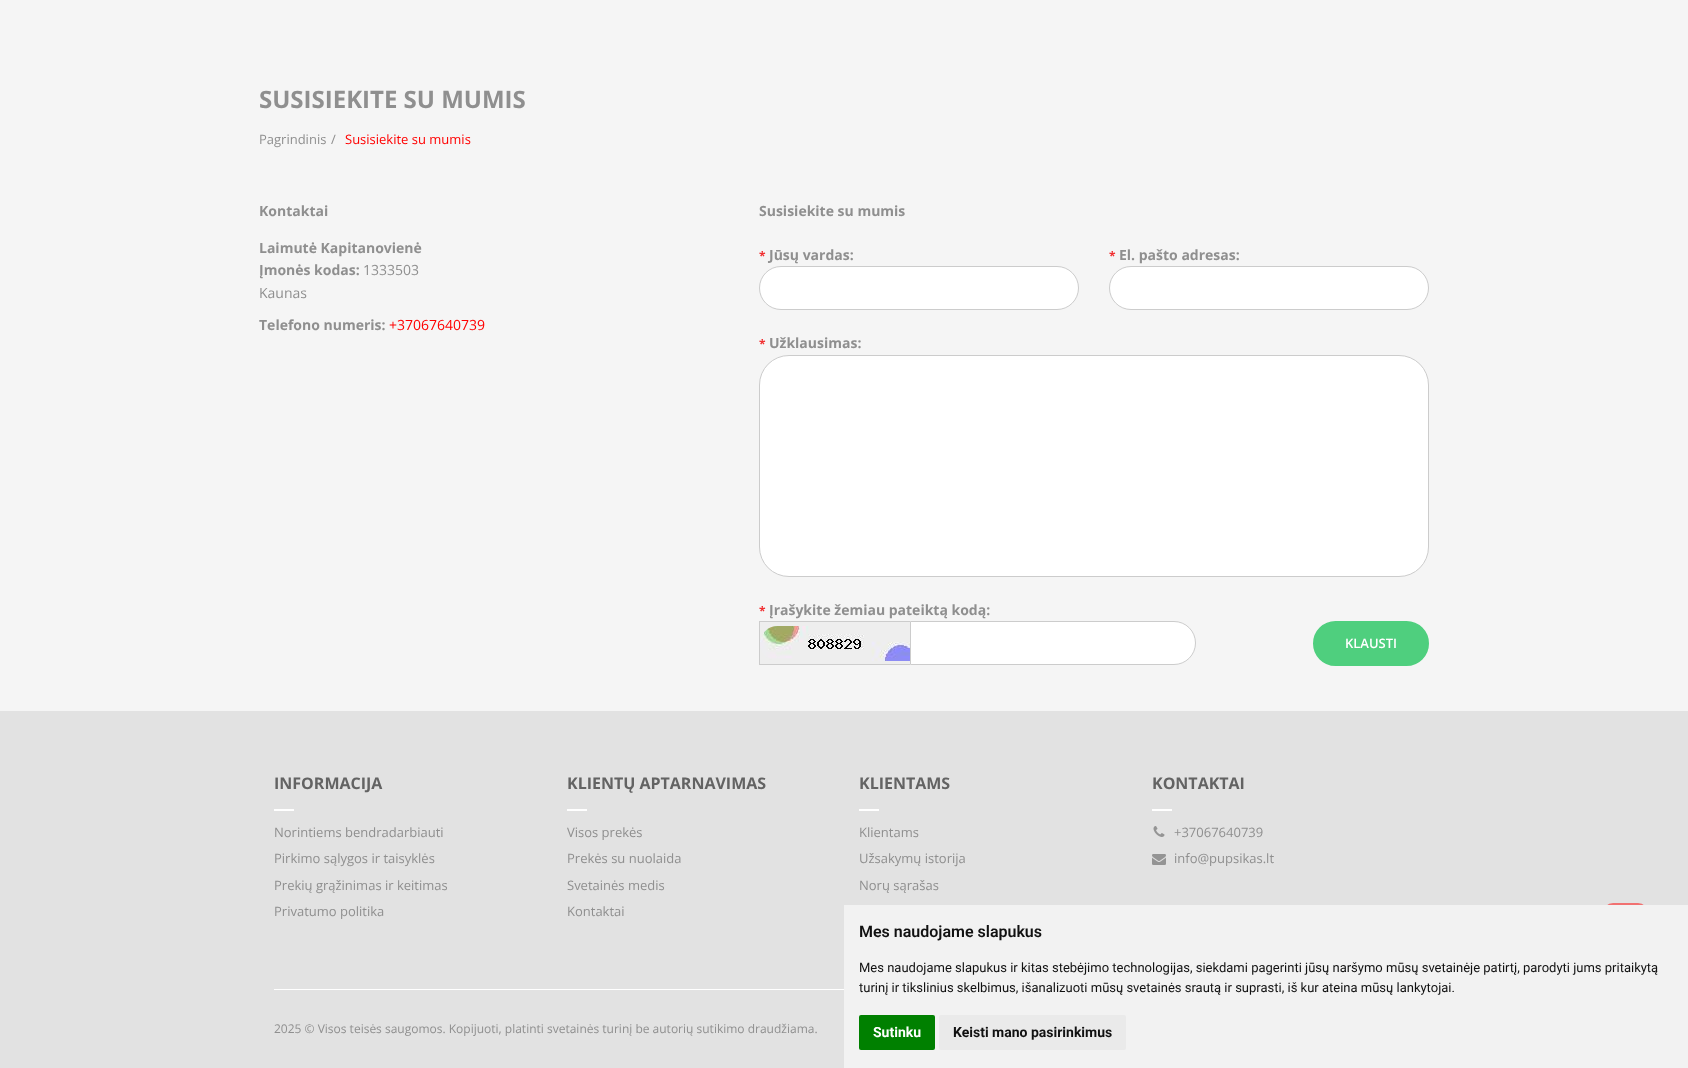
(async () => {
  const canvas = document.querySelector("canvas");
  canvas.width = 1688;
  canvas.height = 1068;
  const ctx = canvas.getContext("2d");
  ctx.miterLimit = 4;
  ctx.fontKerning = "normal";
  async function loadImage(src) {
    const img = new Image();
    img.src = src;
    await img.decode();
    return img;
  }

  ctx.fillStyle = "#f5f5f5";
  ctx.fillRect(0, 0, 1688, 1068);
  ctx.fillStyle = "#ffffff";
  ctx.beginPath();
  ctx.roundRect(759.5, 266.5, 319, 43, 21.5);
  ctx.fill();
  ctx.strokeStyle = "#cccccc";
  ctx.stroke();
  ctx.beginPath();
  ctx.roundRect(1109.5, 266.5, 319, 43, 21.5);
  ctx.fill();
  ctx.stroke();
  ctx.beginPath();
  ctx.roundRect(759.5, 355.5, 669, 221, 29.5);
  ctx.fill();
  ctx.stroke();
  for (const [x, y, w, h, color] of [
    [760, 622, 150, 42, "#eeeeee"],
    [759, 621, 151, 1, "#cccccc"],
    [759, 664, 151, 1, "#cccccc"],
    [759, 621, 1, 44, "#cccccc"],
  ]) {
    ctx.fillStyle = color;
    ctx.fillRect(x, y, w, h);
  }
  ctx.drawImage(await loadImage("img/1.png"), 760, 626, 150, 35);
  ctx.fillStyle = "#ffffff";
  ctx.beginPath();
  ctx.roundRect(910.5, 621.5, 285, 43, [0, 21.5, 21.5, 0]);
  ctx.fill();
  ctx.stroke();
  ctx.fillStyle = "#4fcf7e";
  ctx.beginPath();
  ctx.roundRect(1314, 622, 114, 43, 21.5);
  ctx.fill();
  ctx.strokeStyle = "#4fcf7e";
  ctx.lineWidth = 2;
  ctx.stroke();
  for (const [x, y, w, h, color] of [
    [0, 711, 1688, 357, "#e2e2e2"],
    [274, 809, 20, 2, "#ffffff"],
    [567, 809, 20, 2, "#ffffff"],
    [859, 809, 20, 2, "#ffffff"],
    [1152, 809, 20, 2, "#ffffff"],
  ]) {
    ctx.fillStyle = color;
    ctx.fillRect(x, y, w, h);
  }
  ctx.drawImage(await loadImage("img/2.png"), 1153, 826, 12, 11);
  ctx.drawImage(await loadImage("img/3.png"), 1152, 854, 14, 11);
  ctx.fillRect(274, 989, 570, 1);
  ctx.fillStyle = "#f17171";
  ctx.beginPath();
  ctx.roundRect(1603, 903, 45, 45, 10);
  ctx.fill();
  ctx.fillStyle = "#f2f2f2";
  ctx.fillRect(844, 905, 844, 163);
  ctx.fillStyle = "#008000";
  ctx.beginPath();
  ctx.roundRect(859, 1015, 76, 35, 2);
  ctx.fill();
  ctx.fillStyle = "#eaeaea";
  ctx.beginPath();
  ctx.roundRect(939, 1015, 187, 35, 2);
  ctx.fill();
  ctx.font = "bold 24px Open Sans";
  ctx.fillStyle = "#8f8f8f";
  ctx.fillText("SUSISIEKITE SU MUMIS", 259, 108);
  ctx.font = "13px Open Sans";
  ctx.fillText("Pagrindinis", 259, 144);
  ctx.fillText("/", 331, 144);
  ctx.fillStyle = "#ff0000";
  ctx.fillText("Susisiekite su mumis", 345, 144);
  ctx.font = "bold 14px Open Sans";
  ctx.fillStyle = "#8f8f8f";
  for (const [text, x, y] of [
    ["Kontaktai", 259, 216],
    ["Laimutė Kapitanovienė", 259, 253],
    ["Įmonės kodas:", 259, 275],
  ]) {
    ctx.fillText(text, x, y);
  }
  ctx.font = "14px Open Sans";
  ctx.fillText("1333503", 363, 275);
  ctx.fillText("Kaunas", 259, 298);
  ctx.font = "bold 14px Open Sans";
  ctx.fillText("Telefono numeris:", 259, 330);
  ctx.font = "14px Open Sans";
  ctx.fillStyle = "#ff0000";
  ctx.fillText("+37067640739", 389, 330);
  ctx.font = "bold 14px Open Sans";
  ctx.fillStyle = "#8f8f8f";
  ctx.fillText("Susisiekite su mumis", 759, 216);
  ctx.font = "bold 12px Open Sans";
  ctx.fillStyle = "#f13032";
  ctx.fillText("*", 759, 260);
  ctx.font = "bold 14px Open Sans";
  ctx.fillStyle = "#8f8f8f";
  ctx.fillText("Jūsų vardas:", 769, 260);
  ctx.font = "bold 12px Open Sans";
  ctx.fillStyle = "#f13032";
  ctx.fillText("*", 1109, 260);
  ctx.font = "bold 14px Open Sans";
  ctx.fillStyle = "#8f8f8f";
  ctx.fillText("El. pašto adresas:", 1119, 260);
  ctx.font = "bold 12px Open Sans";
  ctx.fillStyle = "#f13032";
  ctx.fillText("*", 759, 348);
  ctx.font = "bold 14px Open Sans";
  ctx.fillStyle = "#8f8f8f";
  ctx.fillText("Užklausimas:", 769, 348);
  ctx.font = "bold 12px Open Sans";
  ctx.fillStyle = "#f13032";
  ctx.fillText("*", 759, 615);
  ctx.font = "bold 14px Open Sans";
  ctx.fillStyle = "#8f8f8f";
  ctx.fillText("Įrašykite žemiau pateiktą kodą:", 769, 615);
  ctx.font = "600 13px Open Sans";
  ctx.fillStyle = "#ffffff";
  ctx.fillText("KLAUSTI", 1345, 648);
  ctx.font = "bold 16px Open Sans";
  ctx.fillStyle = "#636363";
  ctx.fillText("INFORMACIJA", 274, 789);
  ctx.font = "13px Open Sans";
  ctx.fillStyle = "#8f8f8f";
  for (const [text, x, y] of [
    ["Norintiems bendradarbiauti", 274, 837],
    ["Pirkimo sąlygos ir taisyklės", 274, 863],
    ["Prekių grąžinimas ir keitimas", 274, 890],
    ["Privatumo politika", 274, 916],
  ]) {
    ctx.fillText(text, x, y);
  }
  ctx.font = "bold 16px Open Sans";
  ctx.fillStyle = "#636363";
  ctx.fillText("KLIENTŲ APTARNAVIMAS", 567, 789);
  ctx.font = "13px Open Sans";
  ctx.fillStyle = "#8f8f8f";
  for (const [text, x, y] of [
    ["Visos prekės", 567, 837],
    ["Prekės su nuolaida", 567, 863],
    ["Svetainės medis", 567, 890],
    ["Kontaktai", 567, 916],
  ]) {
    ctx.fillText(text, x, y);
  }
  ctx.font = "bold 16px Open Sans";
  ctx.fillStyle = "#636363";
  ctx.fillText("KLIENTAMS", 859, 789);
  ctx.font = "13px Open Sans";
  ctx.fillStyle = "#8f8f8f";
  for (const [text, x, y] of [
    ["Klientams", 859, 837],
    ["Užsakymų istorija", 859, 863],
    ["Norų sąrašas", 859, 890],
  ]) {
    ctx.fillText(text, x, y);
  }
  ctx.font = "bold 16px Open Sans";
  ctx.fillStyle = "#636363";
  ctx.fillText("KONTAKTAI", 1152, 789);
  ctx.font = "13px Open Sans";
  ctx.fillStyle = "#8f8f8f";
  ctx.fillText("+37067640739", 1174, 837);
  ctx.fillText("info@pupsikas.lt", 1174, 863);
  ctx.font = "12px Open Sans";
  ctx.fillText("2025 © Visos teisės saugomos. Kopijuoti, platinti svetainės turinį be autorių sutikimo draudžiama.", 274, 1033);
  ctx.font = "600 16px Roboto";
  ctx.fillStyle = "#111111";
  ctx.fillText("Mes naudojame slapukus", 859, 937);
  ctx.font = "13px Roboto";
  ctx.fillText("Mes naudojame slapukus ir kitas stebėjimo technologijas, siekdami pagerinti jūsų naršymo mūsų svetainėje patirtį, parodyti jums pritaikytą", 859, 972);
  ctx.fillText("turinį ir tikslinius skelbimus, išanalizuoti mūsų svetainės srautą ir suprasti, iš kur ateina mūsų lankytojai.", 859, 992);
  ctx.font = "bold 14px Roboto";
  ctx.fillStyle = "#ffffff";
  ctx.fillText("Sutinku", 873, 1037);
  ctx.fillStyle = "#111111";
  ctx.fillText("Keisti mano pasirinkimus", 953, 1037);
})();
